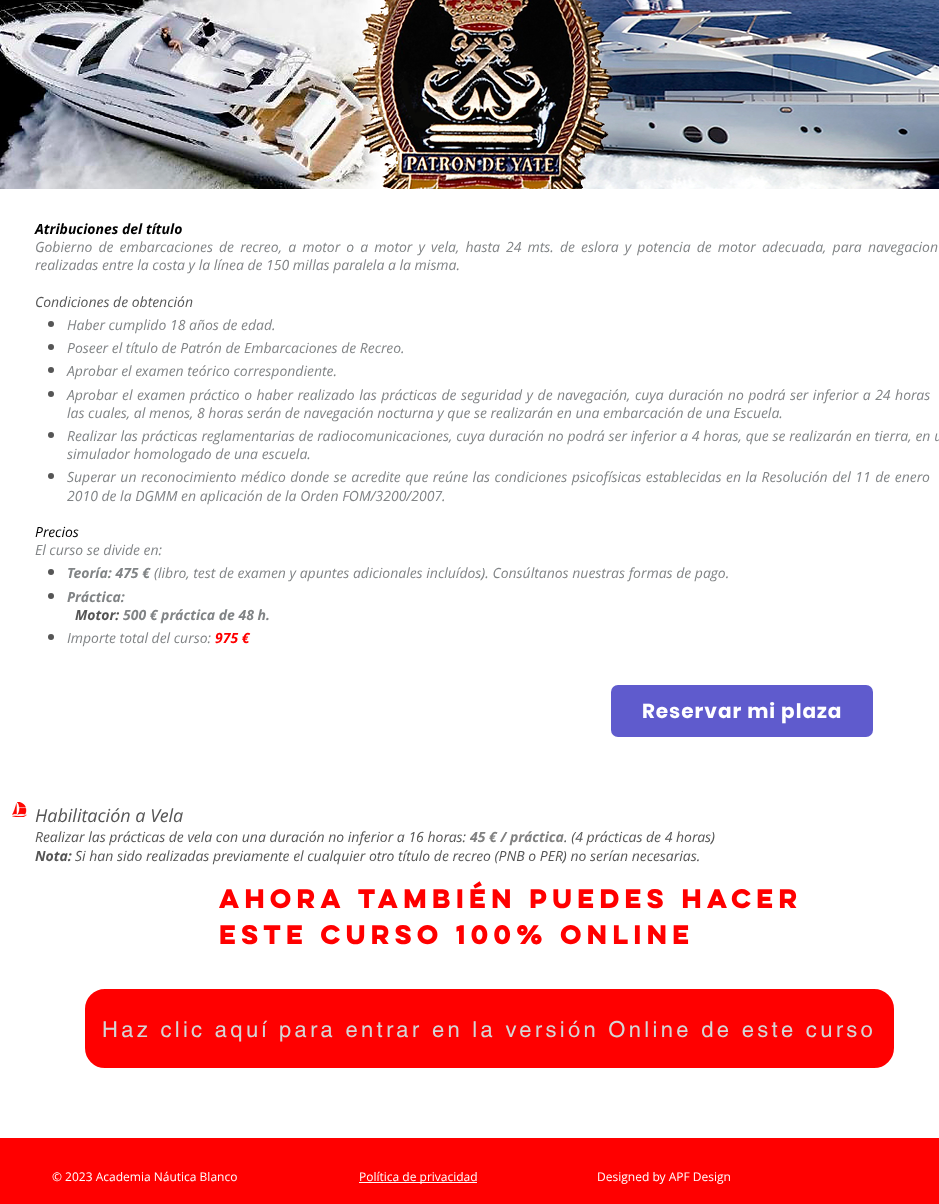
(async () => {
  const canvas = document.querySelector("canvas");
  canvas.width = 939;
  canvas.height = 1204;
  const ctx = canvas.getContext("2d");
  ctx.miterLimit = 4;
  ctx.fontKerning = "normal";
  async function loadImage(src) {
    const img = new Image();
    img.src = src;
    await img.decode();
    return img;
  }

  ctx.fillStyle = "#ffffff";
  ctx.fillRect(0, 0, 939, 1204);
  ctx.drawImage(await loadImage("img/1.png"), 0, 0, 939, 189);
  ctx.fillStyle = "#555555";
  ctx.beginPath();
  ctx.arc(51, 324, 3, 0, Math.PI * 2);
  ctx.fill();
  ctx.beginPath();
  ctx.arc(51, 347, 3, 0, Math.PI * 2);
  ctx.fill();
  ctx.beginPath();
  ctx.arc(51, 370, 3, 0, Math.PI * 2);
  ctx.fill();
  ctx.beginPath();
  ctx.arc(51, 394, 3, 0, Math.PI * 2);
  ctx.fill();
  ctx.beginPath();
  ctx.arc(51, 435, 3, 0, Math.PI * 2);
  ctx.fill();
  ctx.beginPath();
  ctx.arc(51, 476, 3, 0, Math.PI * 2);
  ctx.fill();
  ctx.beginPath();
  ctx.arc(51, 572, 3, 0, Math.PI * 2);
  ctx.fill();
  ctx.beginPath();
  ctx.arc(51, 596, 3, 0, Math.PI * 2);
  ctx.fill();
  ctx.beginPath();
  ctx.arc(51, 637, 3, 0, Math.PI * 2);
  ctx.fill();
  ctx.fillStyle = "#5f5bcd";
  ctx.beginPath();
  ctx.roundRect(611, 685, 262, 52, 7);
  ctx.fill();
  ctx.drawImage(await loadImage("img/2.png"), 12, 802, 15, 15);
  ctx.fillStyle = "#ff0000";
  ctx.beginPath();
  ctx.roundRect(86.5, 990.5, 806, 76, 18.5);
  ctx.fill();
  ctx.strokeStyle = "#ff0000";
  ctx.lineWidth = 3;
  ctx.stroke();
  ctx.fillRect(0, 1138, 939, 66);
  ctx.fillStyle = "#ffffff";
  ctx.fillRect(359, 1182, 118, 1);
  ctx.font = "italic bold 14px Open Sans";
  ctx.fillStyle = "#000000";
  ctx.fillText("Atribuciones del título", 35, 234);
  ctx.wordSpacing = "2.5px";
  ctx.font = "italic 14px Open Sans";
  ctx.fillStyle = "#818486";
  ctx.fillText("Gobierno de embarcaciones de recreo, a motor o a motor y vela, hasta 24 mts. de eslora y potencia de motor adecuada, para navegacion", 35, 252);
  ctx.wordSpacing = "0px";
  ctx.fillText("realizadas entre la costa y la línea de 150 millas paralela a la misma.", 35, 270);
  ctx.fillStyle = "#555555";
  ctx.fillText("Condiciones de obtención", 35, 307);
  ctx.fillStyle = "#818486";
  for (const [text, x, y] of [
    ["Haber cumplido 18 años de edad.", 67, 330],
    ["Poseer el título de Patrón de Embarcaciones de Recreo.", 67, 353],
    ["Aprobar el examen teórico correspondiente.", 67, 376],
  ]) {
    ctx.fillText(text, x, y);
  }
  ctx.wordSpacing = "0.85px";
  ctx.fillText("Aprobar el examen práctico o haber realizado las prácticas de seguridad y de navegación, cuya duración no podrá ser inferior a 24 horas", 67, 400);
  ctx.wordSpacing = "0px";
  ctx.fillText("las cuales, al menos, 8 horas serán de navegación nocturna y que se realizarán en una embarcación de una Escuela.", 67, 418);
  ctx.wordSpacing = "0.2px";
  ctx.fillText("Realizar las prácticas reglamentarias de radiocomunicaciones, cuya duración no podrá ser inferior a 4 horas, que se realizarán en tierra, en u", 67, 441);
  ctx.wordSpacing = "0px";
  ctx.fillText("simulador homologado de una escuela.", 67, 459);
  ctx.wordSpacing = "0.9px";
  ctx.fillText("Superar un reconocimiento médico donde se acredite que reúne las condiciones psicofísicas establecidas en la Resolución del 11 de enero", 67, 482);
  ctx.wordSpacing = "0px";
  ctx.fillText("2010 de la DGMM en aplicación de la Orden FOM/3200/2007.", 67, 501);
  ctx.fillStyle = "#000000";
  ctx.fillText("Precios", 35, 537);
  ctx.fillStyle = "#818486";
  ctx.fillText("El curso se divide en:", 35, 555);
  ctx.font = "italic bold 14px Open Sans";
  ctx.fillText("Teoría: 475 €", 67, 578);
  ctx.font = "italic 14px Open Sans";
  ctx.fillText("(libro, test de examen y apuntes adicionales incluídos). Consúltanos nuestras formas de pago.", 154, 578);
  ctx.font = "italic bold 14px Open Sans";
  ctx.fillText("Práctica:", 67, 602);
  ctx.fillStyle = "#555555";
  ctx.fillText("Motor:", 75, 620);
  ctx.fillStyle = "#818486";
  ctx.fillText("500 € práctica de 48 h.", 123, 620);
  ctx.font = "italic 14px Open Sans";
  ctx.fillText("Importe total del curso:", 67, 643);
  ctx.font = "italic bold 14px Open Sans";
  ctx.fillStyle = "#ff0000";
  ctx.fillText("975 €", 215, 643);
  ctx.letterSpacing = "1px";
  ctx.font = "bold 20px Poppins";
  ctx.fillStyle = "#ffffff";
  ctx.fillText("Reservar mi plaza", 642, 718);
  ctx.letterSpacing = "0px";
  ctx.font = "italic 18px Open Sans";
  ctx.fillStyle = "#555555";
  ctx.fillText("Habilitación a Vela", 35, 822);
  ctx.font = "italic 14px Open Sans";
  ctx.fillText("Realizar las prácticas de vela con una duración no inferior a 16 horas:", 35, 842);
  ctx.font = "italic bold 14px Open Sans";
  ctx.fillStyle = "#808080";
  ctx.fillText("45 € / práctica", 470, 842);
  ctx.font = "italic 14px Open Sans";
  ctx.fillStyle = "#555555";
  ctx.fillText(". (4 prácticas de 4 horas)", 564, 842);
  ctx.font = "italic bold 14px Open Sans";
  ctx.fillText("Nota:", 35, 861);
  ctx.font = "italic 14px Open Sans";
  ctx.fillText("Si han sido realizadas previamente el cualquier otro título de recreo (PNB o PER) no serían necesarias.", 75, 861);
  ctx.font = "bold 24px 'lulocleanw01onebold'";
  ctx.fillStyle = "#ff0000";
  ctx.fillText("Ahora también puedes hacer", 219, 908);
  ctx.fillText("este curso 100% online", 219, 944);
  ctx.letterSpacing = "3.3px";
  ctx.font = "22px helvetica";
  ctx.fillStyle = "#d5d5d5";
  ctx.fillText("Haz clic aquí para entrar en la versión Online de este curso", 102, 1037);
  ctx.letterSpacing = "0px";
  ctx.font = "12px Open Sans";
  ctx.fillStyle = "#ffffff";
  for (const [text, x, y] of [
    ["© 2023 Academia Náutica Blanco", 52, 1181],
    ["Política de privacidad", 359, 1181],
    ["Designed by APF Design", 597, 1181],
  ]) {
    ctx.fillText(text, x, y);
  }
})();
